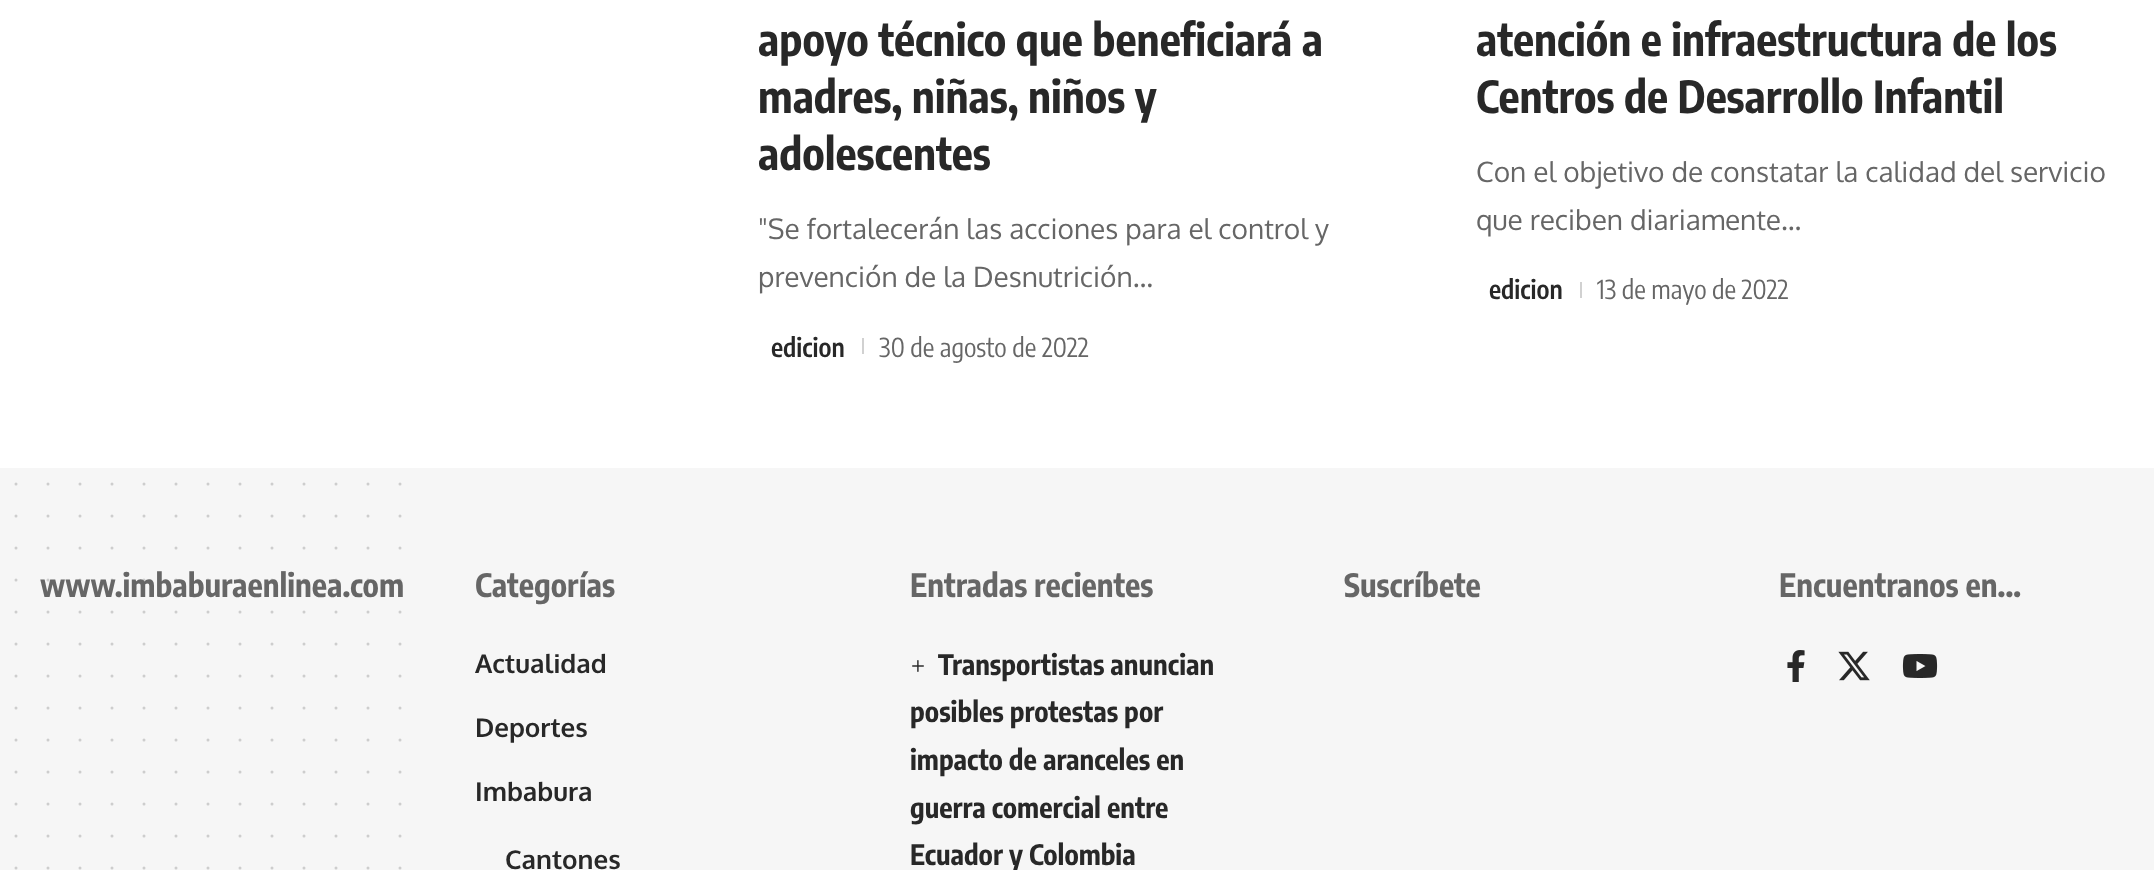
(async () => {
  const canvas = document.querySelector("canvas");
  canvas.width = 2154;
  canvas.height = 870;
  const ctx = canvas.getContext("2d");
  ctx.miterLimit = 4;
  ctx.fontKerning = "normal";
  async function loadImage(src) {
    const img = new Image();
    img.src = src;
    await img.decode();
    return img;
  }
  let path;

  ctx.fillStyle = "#ffffff";
  ctx.fillRect(0, 0, 2154, 870);
  for (const [x, y, w, h, color] of [
    [862, 338, 2, 16, "#d1d1d1"],
    [1580, 282, 2, 16, "#d1d1d1"],
    [0, 468, 2154, 402, "#f6f6f6"],
  ]) {
    ctx.fillStyle = color;
    ctx.fillRect(x, y, w, h);
  }
  path = new Path2D("M16 484V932.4");
  ctx.strokeStyle = "#cdcdcd";
  ctx.lineWidth = 3;
  ctx.lineCap = "round";
  ctx.setLineDash([0, 32]);
  ctx.stroke(path);
  path = new Path2D("M48 484V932.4");
  ctx.stroke(path);
  path = new Path2D("M80 484V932.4");
  ctx.stroke(path);
  path = new Path2D("M112 484V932.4");
  ctx.stroke(path);
  path = new Path2D("M144 484V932.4");
  ctx.stroke(path);
  path = new Path2D("M176 484V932.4");
  ctx.stroke(path);
  path = new Path2D("M208 484V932.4");
  ctx.stroke(path);
  path = new Path2D("M240 484V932.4");
  ctx.stroke(path);
  path = new Path2D("M272 484V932.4");
  ctx.stroke(path);
  path = new Path2D("M304 484V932.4");
  ctx.stroke(path);
  path = new Path2D("M336 484V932.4");
  ctx.stroke(path);
  path = new Path2D("M368 484V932.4");
  ctx.stroke(path);
  path = new Path2D("M400 484V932.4");
  ctx.stroke(path);
  ctx.drawImage(await loadImage("img/1.png"), 912, 660, 12, 12);
  ctx.drawImage(await loadImage("img/2.png"), 1787, 650, 18, 32);
  ctx.drawImage(await loadImage("img/3.png"), 1838, 651, 32, 30);
  ctx.drawImage(await loadImage("img/4.png"), 1902, 654, 36, 24);
  ctx.font = "bold 44px Encode Sans Condensed";
  ctx.fillStyle = "#282828";
  for (const [text, x, y] of [
    ["apoyo técnico que beneficiará a", 758, 56],
    ["madres, niñas, niños y", 758, 113],
    ["adolescentes", 758, 170],
  ]) {
    ctx.fillText(text, x, y);
  }
  ctx.font = "28px Oxygen";
  ctx.fillStyle = "#666666";
  ctx.fillText("\"Se fortalecerán las acciones para el control y", 758, 239);
  ctx.fillText("prevención de la Desnutrición…", 758, 287);
  ctx.font = "600 26px Encode Sans Condensed";
  ctx.fillStyle = "#282828";
  ctx.fillText("edicion", 771, 357);
  ctx.font = "26px Encode Sans Condensed";
  ctx.fillStyle = "#666666";
  ctx.fillText("30 de agosto de 2022", 879, 357);
  ctx.font = "bold 44px Encode Sans Condensed";
  ctx.fillStyle = "#282828";
  ctx.fillText("atención e infraestructura de los", 1476, 56);
  ctx.fillText("Centros de Desarrollo Infantil", 1476, 113);
  ctx.font = "28px Oxygen";
  ctx.fillStyle = "#666666";
  ctx.fillText("Con el objetivo de constatar la calidad del servicio", 1476, 182);
  ctx.fillText("que reciben diariamente…", 1476, 230);
  ctx.font = "600 26px Encode Sans Condensed";
  ctx.fillStyle = "#282828";
  ctx.fillText("edicion", 1489, 299);
  ctx.font = "26px Encode Sans Condensed";
  ctx.fillStyle = "#666666";
  ctx.fillText("13 de mayo de 2022", 1597, 299);
  ctx.font = "bold 32px Encode Sans Condensed";
  ctx.fillText("www.imbaburaenlinea.com", 40, 597);
  ctx.fillText("Categorías", 475, 597);
  ctx.font = "bold 26px Oxygen";
  ctx.fillStyle = "#282828";
  for (const [text, x, y] of [
    ["Actualidad", 475, 673],
    ["Deportes", 475, 737],
    ["Imbabura", 475, 801],
    ["Cantones", 505, 869],
  ]) {
    ctx.fillText(text, x, y);
  }
  ctx.font = "bold 32px Encode Sans Condensed";
  ctx.fillStyle = "#666666";
  ctx.fillText("Entradas recientes", 910, 597);
  ctx.font = "bold 28px Encode Sans Condensed";
  ctx.fillStyle = "#282828";
  for (const [text, x, y] of [
    ["Transportistas anuncian", 938, 675],
    ["posibles protestas por", 910, 722],
    ["impacto de aranceles en", 910, 770],
    ["guerra comercial entre", 910, 818],
    ["Ecuador y Colombia", 910, 865],
  ]) {
    ctx.fillText(text, x, y);
  }
  ctx.font = "bold 32px Encode Sans Condensed";
  ctx.fillStyle = "#666666";
  ctx.fillText("Suscríbete", 1344, 597);
  ctx.fillText("Encuentranos en...", 1779, 597);
})();
